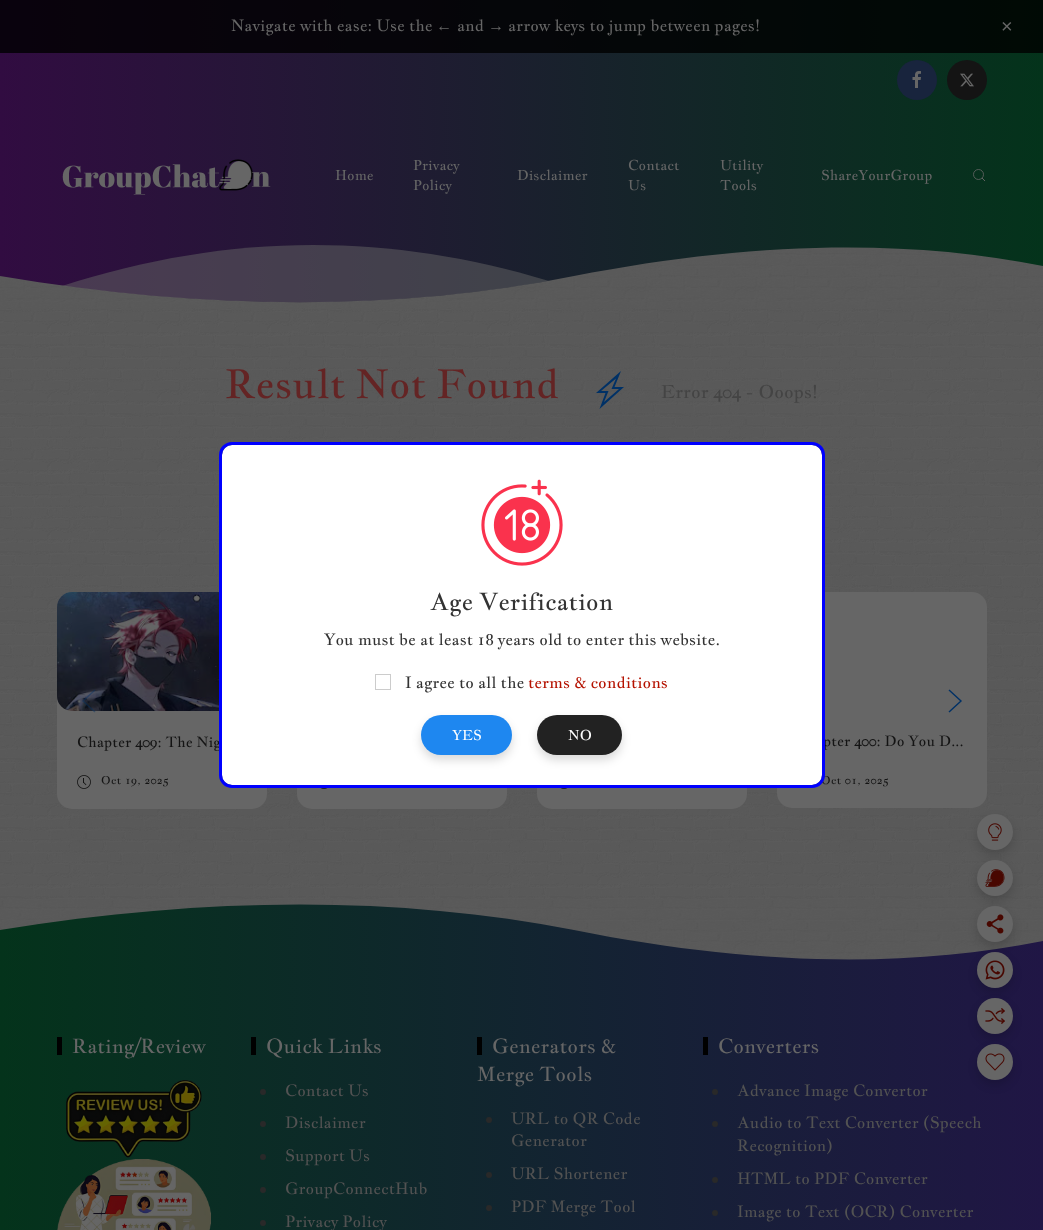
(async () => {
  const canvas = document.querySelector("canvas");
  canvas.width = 1043;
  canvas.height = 1230;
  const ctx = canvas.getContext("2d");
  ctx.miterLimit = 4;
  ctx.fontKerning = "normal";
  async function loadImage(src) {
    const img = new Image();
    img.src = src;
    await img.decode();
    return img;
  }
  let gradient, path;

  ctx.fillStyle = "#5f5f5f";
  ctx.fillRect(0, 0, 1043, 1230);
  ctx.drawImage(await loadImage("img/1.png"), 0, 308, 1043, 591);
  gradient = ctx.createLinearGradient(0, 154, 1043, 154);
  gradient.addColorStop(0, "#310c41");
  gradient.addColorStop(1, "#04331b");
  ctx.fillStyle = gradient;
  ctx.fillRect(0, 0, 1043, 245);
  ctx.fillStyle = "rgba(0, 0, 0, 0.8)";
  ctx.fillRect(0, 0, 1043, 53);
  ctx.fillStyle = "#18243d";
  ctx.beginPath();
  ctx.arc(917, 80, 20, 0, Math.PI * 2);
  ctx.fill();
  ctx.drawImage(await loadImage("img/2.png"), 912, 71, 9, 17);
  ctx.fillStyle = "#141414";
  ctx.beginPath();
  ctx.arc(967, 80, 20, 0, Math.PI * 2);
  ctx.fill();
  ctx.drawImage(await loadImage("img/3.png"), 960, 73, 14, 14);
  ctx.drawImage(await loadImage("img/4.png"), 62, 159, 209, 36);
  ctx.beginPath();
  ctx.arc(978.5, 174.5, 5, 0, Math.PI * 2);
  ctx.strokeStyle = "#666666";
  ctx.lineWidth = 0.8;
  ctx.stroke();
  path = new Path2D("M982 178L985 181Z");
  ctx.stroke(path);
  ctx.drawImage(await loadImage("img/5.png"), 0, 247, 1043, 61);
  ctx.save();
  ctx.beginPath();
  ctx.rect(0, 245, 1043, 63);
  ctx.clip();
  gradient = ctx.createLinearGradient(0, 235, 1043, 235);
  gradient.addColorStop(0, "#310c41");
  gradient.addColorStop(1, "#04331b");
  ctx.fillStyle = gradient;
  path = new Path2D("M0 235V276C209 311 399 311 574 276C748 242 904 238 1043 266V235Z");
  ctx.fill(path);
  ctx.restore();
  ctx.fillStyle = "rgba(102, 102, 102, 0.5)";
  path = new Path2D("M313 245C392 245 470 257 549 281C399 308 237 309 62 286C146 259 229 245 313 245Z");
  ctx.fill(path);
  ctx.fillStyle = "#003166";
  path = new Path2D("M599.5 409L605.5 393H596L621 371L614.5 387H624ZM608.5 391L604 402L619 389H611.5L616 378.5L601 391Z");
  ctx.fill(path);
  ctx.fillStyle = "#666666";
  ctx.beginPath();
  ctx.roundRect(57, 592, 210, 217, 15);
  ctx.fill();
  ctx.drawImage(await loadImage("img/6.png"), 57, 592, 162, 119);
  path = new Path2D("M95 690L83 701L95 712");
  ctx.strokeStyle = "rgba(0, 49, 102, 0.4)";
  ctx.lineWidth = 1.4;
  ctx.stroke(path);
  ctx.beginPath();
  ctx.roundRect(777, 592, 210, 216, 15);
  ctx.fill();
  path = new Path2D("M949 712L961 701L949 690");
  ctx.strokeStyle = "#003166";
  ctx.stroke(path);
  ctx.drawImage(await loadImage("img/7.png"), 77, 775, 14, 14);
  ctx.beginPath();
  ctx.roundRect(297, 592, 210, 217, 15);
  ctx.fill();
  ctx.drawImage(await loadImage("img/8.png"), 320, 788, 8, 1);
  ctx.beginPath();
  ctx.roundRect(537, 592, 210, 217, 15);
  ctx.fill();
  ctx.drawImage(await loadImage("img/8.png"), 560, 788, 8, 1);
  gradient = ctx.createLinearGradient(0, 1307, 1043, 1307);
  gradient.addColorStop(0, "#04331b");
  gradient.addColorStop(1, "#201645");
  ctx.fillStyle = gradient;
  ctx.fillRect(0, 962, 1043, 268);
  ctx.drawImage(await loadImage("img/9.png"), 0, 899, 1043, 61);
  ctx.save();
  ctx.beginPath();
  ctx.rect(0, 899, 1043, 63);
  ctx.clip();
  gradient = ctx.createLinearGradient(0, 904, 1043, 904);
  gradient.addColorStop(0, "#04331b");
  gradient.addColorStop(1, "#201645");
  ctx.fillStyle = gradient;
  path = new Path2D("M0 972V930C209 896 399 896 574 930C748 965 904 969 1043 941V972Z");
  ctx.fill(path);
  ctx.restore();
  ctx.fillStyle = "#000000";
  ctx.fillRect(57, 1037, 5, 18);
  ctx.drawImage(await loadImage("img/10.png"), 66, 1080, 136, 78);
  ctx.drawImage(await loadImage("img/11.png"), 57, 1159, 154, 71);
  ctx.fillRect(251, 1037, 5, 18);
  ctx.fillStyle = "#292929";
  ctx.beginPath();
  ctx.arc(263, 1092, 3, 0, Math.PI * 2);
  ctx.fill();
  ctx.beginPath();
  ctx.arc(263, 1124, 3, 0, Math.PI * 2);
  ctx.fill();
  ctx.beginPath();
  ctx.arc(263, 1157, 3, 0, Math.PI * 2);
  ctx.fill();
  ctx.beginPath();
  ctx.arc(263, 1190, 3, 0, Math.PI * 2);
  ctx.fill();
  ctx.beginPath();
  ctx.arc(263, 1223, 3, 0, Math.PI * 2);
  ctx.fill();
  ctx.fillStyle = "#000000";
  ctx.fillRect(477, 1037, 5, 18);
  ctx.fillStyle = "#292929";
  ctx.beginPath();
  ctx.arc(489, 1120, 3, 0, Math.PI * 2);
  ctx.fill();
  ctx.beginPath();
  ctx.arc(489, 1175, 3, 0, Math.PI * 2);
  ctx.fill();
  ctx.beginPath();
  ctx.arc(489, 1208, 3, 0, Math.PI * 2);
  ctx.fill();
  ctx.fillStyle = "#000000";
  ctx.fillRect(703, 1037, 5, 18);
  ctx.fillStyle = "#292929";
  ctx.beginPath();
  ctx.arc(715, 1092, 3, 0, Math.PI * 2);
  ctx.fill();
  ctx.beginPath();
  ctx.arc(715, 1124, 3, 0, Math.PI * 2);
  ctx.fill();
  ctx.beginPath();
  ctx.arc(715, 1180, 3, 0, Math.PI * 2);
  ctx.fill();
  ctx.beginPath();
  ctx.arc(715, 1213, 3, 0, Math.PI * 2);
  ctx.fill();
  ctx.fillStyle = "rgba(0, 0, 0, 0.15)";
  ctx.filter = "blur(5px)";
  ctx.beginPath();
  ctx.roundRect(977, 819, 36, 36, 18);
  ctx.fill();
  ctx.filter = "none";
  ctx.fillStyle = "#666666";
  ctx.beginPath();
  ctx.arc(995, 832, 18, 0, Math.PI * 2);
  ctx.fill();
  ctx.drawImage(await loadImage("img/13.png"), 988, 823, 14, 18);
  ctx.fillStyle = "rgba(0, 0, 0, 0.15)";
  ctx.filter = "blur(5px)";
  ctx.beginPath();
  ctx.roundRect(977, 865, 36, 36, 18);
  ctx.fill();
  ctx.filter = "none";
  ctx.fillStyle = "#666666";
  ctx.beginPath();
  ctx.arc(995, 878, 18, 0, Math.PI * 2);
  ctx.fill();
  ctx.drawImage(await loadImage("img/14.png"), 985, 869, 20, 18);
  ctx.fillStyle = "rgba(0, 0, 0, 0.15)";
  ctx.filter = "blur(5px)";
  ctx.beginPath();
  ctx.roundRect(977, 911, 36, 36, 18);
  ctx.fill();
  ctx.filter = "none";
  ctx.fillStyle = "#666666";
  ctx.beginPath();
  ctx.arc(995, 924, 18, 0, Math.PI * 2);
  ctx.fill();
  ctx.drawImage(await loadImage("img/15.png"), 986, 914, 18, 20);
  ctx.fillStyle = "rgba(0, 0, 0, 0.15)";
  ctx.filter = "blur(5px)";
  ctx.beginPath();
  ctx.roundRect(977, 957, 36, 36, 18);
  ctx.fill();
  ctx.filter = "none";
  ctx.fillStyle = "#666666";
  ctx.beginPath();
  ctx.arc(995, 970, 18, 0, Math.PI * 2);
  ctx.fill();
  ctx.drawImage(await loadImage("img/16.png"), 985, 960, 20, 20);
  ctx.fillStyle = "rgba(0, 0, 0, 0.15)";
  ctx.filter = "blur(5px)";
  ctx.beginPath();
  ctx.roundRect(977, 1003, 36, 36, 18);
  ctx.fill();
  ctx.filter = "none";
  ctx.fillStyle = "#666666";
  ctx.beginPath();
  ctx.arc(995, 1016, 18, 0, Math.PI * 2);
  ctx.fill();
  ctx.drawImage(await loadImage("img/17.png"), 985, 1008, 20, 16);
  ctx.fillStyle = "rgba(0, 0, 0, 0.15)";
  ctx.filter = "blur(5px)";
  ctx.beginPath();
  ctx.roundRect(977, 1049, 36, 36, 18);
  ctx.fill();
  ctx.filter = "none";
  ctx.fillStyle = "#666666";
  ctx.beginPath();
  ctx.arc(995, 1062, 18, 0, Math.PI * 2);
  ctx.fill();
  ctx.drawImage(await loadImage("img/18.png"), 985, 1053, 20, 18);
  ctx.font = "16px Jacques Francois";
  ctx.fillText("Navigate with ease: Use the", 231, 31);
  ctx.font = "16px Liberation Sans";
  ctx.fillText("←", 436, 31);
  ctx.font = "16px Jacques Francois";
  ctx.fillText("and", 457, 31);
  ctx.font = "16px Liberation Sans";
  ctx.fillText("→", 488, 31);
  ctx.font = "16px Jacques Francois";
  ctx.fillText("arrow keys to jump between pages!", 508, 31);
  ctx.font = "20px Liberation Sans";
  ctx.fillText("×", 1001, 33);
  ctx.font = "14px Jacques Francois";
  for (const [text, x, y] of [
    ["Home", 335, 180],
    ["Privacy", 413, 170],
    ["Policy", 413, 190],
    ["Disclaimer", 517, 180],
    ["Contact", 628, 170],
    ["Us", 628, 190],
    ["Utility", 720, 170],
    ["Tools", 720, 190],
    ["ShareYourGroup", 821, 180],
  ]) {
    ctx.fillText(text, x, y);
  }
  ctx.font = "40px Jacques Francois";
  ctx.fillStyle = "#642424";
  ctx.fillText("Result Not Found", 225, 398);
  ctx.font = "18px Jacques Francois";
  ctx.fillStyle = "#444444";
  ctx.fillText("Error 404 - Ooops!", 661, 398);
  ctx.font = "14.5px Jacques Francois";
  ctx.fillStyle = "#141414";
  ctx.fillText("Chapter 409: The Nig", 77, 747);
  ctx.letterSpacing = "0.5px";
  ctx.font = "11px Jacques Francois";
  ctx.fillText("Oct 19, 2025", 101, 784);
  ctx.letterSpacing = "0px";
  ctx.font = "14.5px Jacques Francois";
  ctx.fillText("pter 400: Do You D...", 823, 746);
  ctx.letterSpacing = "0.5px";
  ctx.font = "11px Jacques Francois";
  ctx.fillText("Oct 01, 2025", 821, 784);
  ctx.letterSpacing = "0px";
  ctx.font = "20px Jacques Francois";
  ctx.fillStyle = "#666666";
  ctx.fillText("Rating/Review", 72, 1053);
  ctx.fillText("Quick Links", 266, 1053);
  ctx.font = "16px Jacques Francois";
  ctx.fillStyle = "#525252";
  for (const [text, x, y] of [
    ["Contact Us", 285, 1096],
    ["Disclaimer", 285, 1128],
    ["Support Us", 285, 1161],
    ["GroupConnectHub", 285, 1194],
    ["Privacy Policy", 285, 1227],
  ]) {
    ctx.fillText(text, x, y);
  }
  ctx.font = "20px Jacques Francois";
  ctx.fillStyle = "#666666";
  ctx.fillText("Generators &", 492, 1053);
  ctx.fillText("Merge Tools", 477, 1081);
  ctx.font = "16px Jacques Francois";
  ctx.fillStyle = "#525252";
  for (const [text, x, y] of [
    ["URL to QR Code", 511, 1124],
    ["Generator", 511, 1146],
    ["URL Shortener", 511, 1179],
    ["PDF Merge Tool", 511, 1212],
  ]) {
    ctx.fillText(text, x, y);
  }
  ctx.font = "20px Jacques Francois";
  ctx.fillStyle = "#666666";
  ctx.fillText("Converters", 718, 1053);
  ctx.font = "16px Jacques Francois";
  ctx.fillStyle = "#525252";
  for (const [text, x, y] of [
    ["Advance Image Convertor", 737, 1096],
    ["Audio to Text Converter (Speech", 737, 1128],
    ["Recognition)", 737, 1151],
    ["HTML to PDF Converter", 737, 1184],
    ["Image to Text (OCR) Converter", 737, 1217],
  ]) {
    ctx.fillText(text, x, y);
  }
  ctx.fillStyle = "#ffffff";
  ctx.beginPath();
  ctx.roundRect(222, 445, 600, 340, 10);
  ctx.fill();
  ctx.drawImage(await loadImage("img/12.png"), 481, 479, 82, 87);
  ctx.font = "24px Jacques Francois";
  ctx.fillStyle = "#333333";
  ctx.fillText("Age Verification", 430, 610);
  ctx.font = "16px Jacques Francois";
  ctx.fillText("You must be at least 18 years old to enter this website.", 324, 645);
  ctx.fillText("I agree to all the", 405, 688);
  ctx.fillStyle = "#b51200";
  ctx.fillText("terms & conditions", 528, 688);
  ctx.fillStyle = "rgba(0, 0, 0, 0.15)";
  ctx.filter = "blur(5px)";
  ctx.beginPath();
  ctx.roundRect(421, 720, 91, 40, 20);
  ctx.fill();
  ctx.filter = "none";
  ctx.fillStyle = "#1e87f0";
  ctx.beginPath();
  ctx.roundRect(421, 715, 91, 40, 20);
  ctx.fill();
  ctx.font = "14px Jacques Francois";
  ctx.fillStyle = "#ffffff";
  ctx.fillText("YES", 452, 740);
  ctx.fillStyle = "rgba(0, 0, 0, 0.15)";
  ctx.filter = "blur(5px)";
  ctx.beginPath();
  ctx.roundRect(537, 720, 85, 40, 20);
  ctx.fill();
  ctx.filter = "none";
  ctx.fillStyle = "#222222";
  ctx.beginPath();
  ctx.roundRect(537, 715, 85, 40, 20);
  ctx.fill();
  ctx.beginPath();
  ctx.roundRect(220.5, 443.5, 603, 343, 11.5);
  ctx.strokeStyle = "#0000ff";
  ctx.lineWidth = 3;
  ctx.stroke();
  ctx.strokeStyle = "#cccccc";
  ctx.lineWidth = 1;
  ctx.strokeRect(375.5, 674.5, 15, 15);
  ctx.fillStyle = "#ffffff";
  ctx.fillText("NO", 568, 740);
})();
